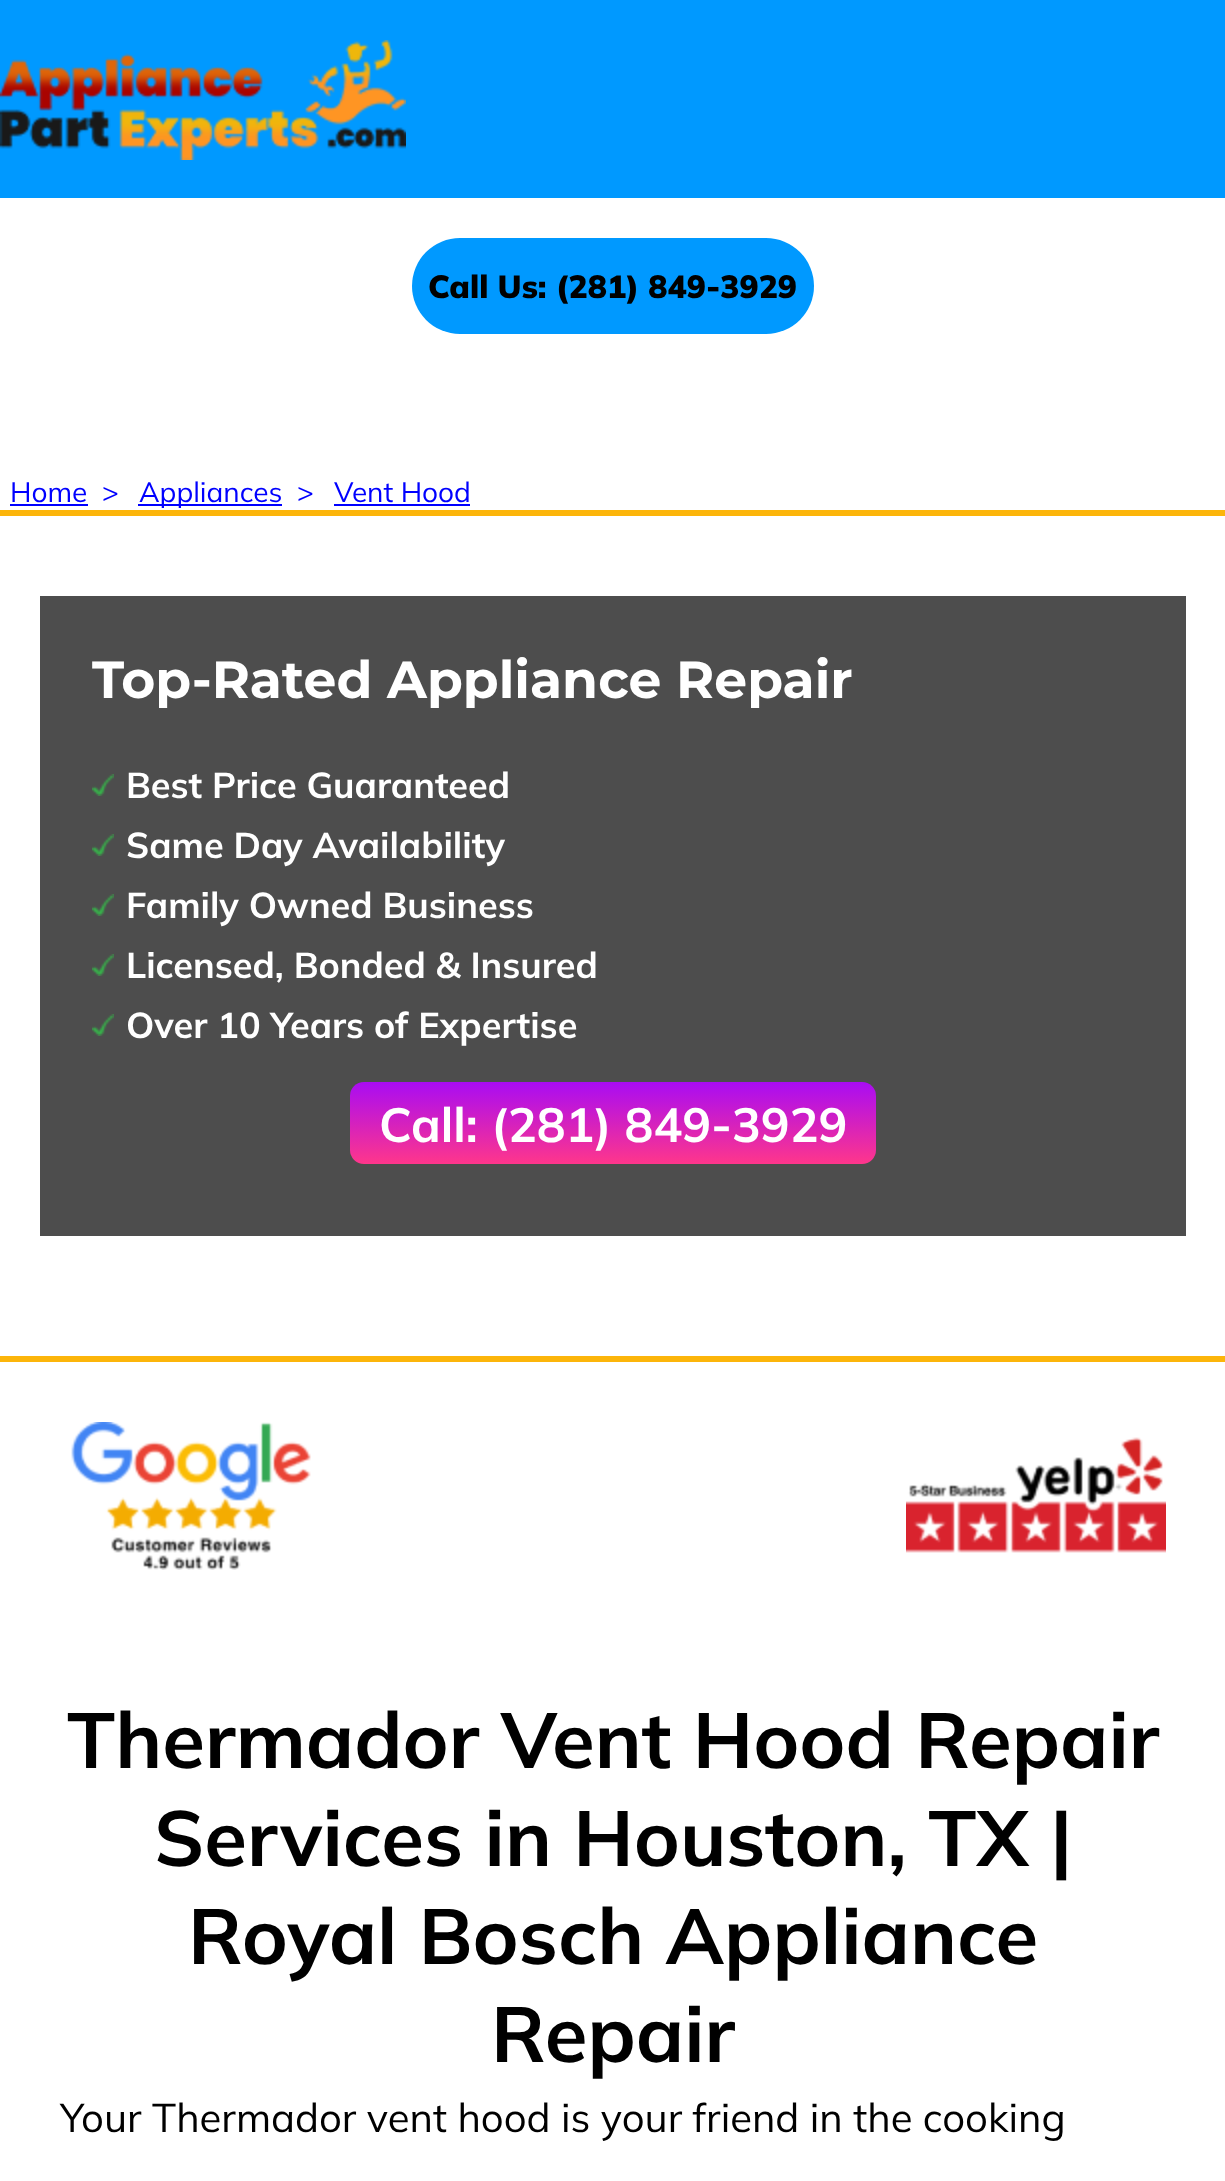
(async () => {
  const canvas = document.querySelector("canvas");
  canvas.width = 1225;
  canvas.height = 2181;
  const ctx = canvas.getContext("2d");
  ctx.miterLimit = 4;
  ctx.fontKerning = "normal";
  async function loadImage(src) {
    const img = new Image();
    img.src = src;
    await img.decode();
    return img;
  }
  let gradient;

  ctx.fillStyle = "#ffffff";
  ctx.fillRect(0, 0, 1225, 2181);
  ctx.fillStyle = "#0099ff";
  ctx.fillRect(0, 0, 1225, 198);
  ctx.drawImage(await loadImage("img/1.png"), 0, 40, 406, 120);
  ctx.beginPath();
  ctx.roundRect(412, 238, 402, 96, 48);
  ctx.fill();
  for (const [x, y, w, h, color] of [
    [10, 504, 78, 2, "#0000ff"],
    [138, 504, 144, 2, "#0000ff"],
    [334, 504, 136, 2, "#0000ff"],
    [0, 510, 1225, 6, "#fcb50a"],
    [0, 1356, 1225, 6, "#fcb50a"],
    [40, 596, 1146, 640, "#4d4d4d"],
  ]) {
    ctx.fillStyle = color;
    ctx.fillRect(x, y, w, h);
  }
  ctx.drawImage(await loadImage("img/2.png"), 92, 774, 22, 22);
  ctx.drawImage(await loadImage("img/2.png"), 92, 834, 22, 22);
  ctx.drawImage(await loadImage("img/2.png"), 92, 894, 22, 22);
  ctx.drawImage(await loadImage("img/2.png"), 92, 954, 22, 22);
  ctx.drawImage(await loadImage("img/2.png"), 92, 1014, 22, 22);
  gradient = ctx.createLinearGradient(613, 1082, 613, 1164);
  gradient.addColorStop(0, "#a90cf3");
  gradient.addColorStop(1, "#ff368b");
  ctx.fillStyle = gradient;
  ctx.beginPath();
  ctx.roundRect(350, 1082, 526, 82, 14);
  ctx.fill();
  ctx.drawImage(await loadImage("img/3.png"), 71, 1422, 240, 148);
  ctx.drawImage(await loadImage("img/4.png"), 906, 1437, 260, 116);
  ctx.font = "900 32px Mulish";
  ctx.fillStyle = "#000000";
  ctx.fillText("Call Us: (281) 849-3929", 428, 298);
  ctx.font = "28px Mulish";
  ctx.fillStyle = "#0000ff";
  for (const [text, x, y] of [
    ["Home", 10, 502],
    [">", 102, 502],
    ["Appliances", 139, 502],
    [">", 297, 502],
    ["Vent Hood", 334, 502],
  ]) {
    ctx.fillText(text, x, y);
  }
  ctx.font = "bold 52px Montserrat";
  ctx.fillStyle = "#ffffff";
  ctx.fillText("Top-Rated Appliance Repair", 92, 698);
  ctx.font = "bold 36px Mulish";
  for (const [text, x, y] of [
    ["Best Price Guaranteed", 126, 798],
    ["Same Day Availability", 126, 858],
    ["Family Owned Business", 126, 918],
    ["Licensed, Bonded & Insured", 126, 978],
    ["Over 10 Years of Expertise", 126, 1038],
  ]) {
    ctx.fillText(text, x, y);
  }
  ctx.font = "bold 48px Mulish";
  ctx.fillText("Call: (281) 849-3929", 379, 1142);
  ctx.font = "bold 78px Mulish";
  ctx.fillStyle = "#000000";
  for (const [text, x, y] of [
    ["Thermador Vent Hood Repair", 67, 1768],
    ["Services in Houston, TX |", 154, 1866],
    ["Royal Bosch Appliance", 188, 1964],
    ["Repair", 491, 2062],
  ]) {
    ctx.fillText(text, x, y);
  }
  ctx.font = "40px Mulish";
  ctx.fillText("Your Thermador vent hood is your friend in the cooking", 60, 2132);
})();
